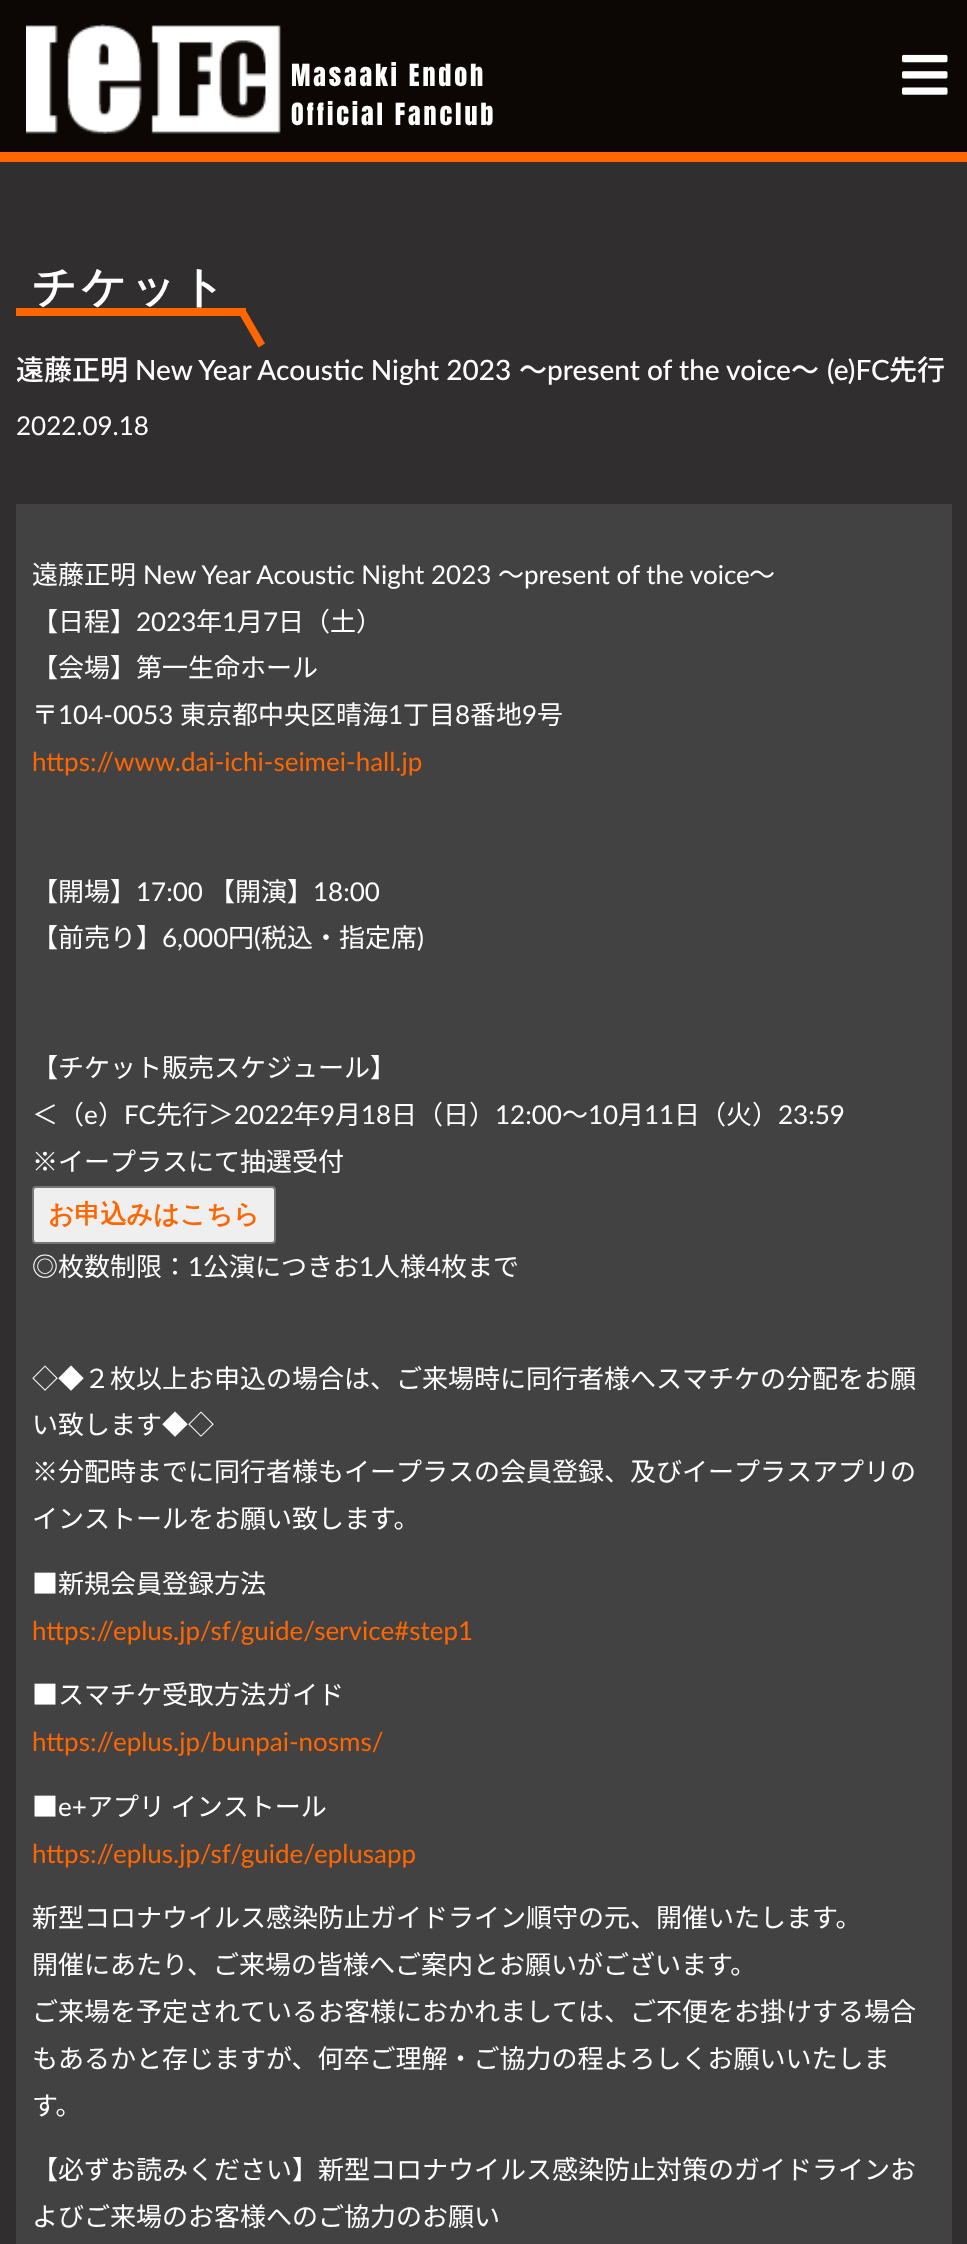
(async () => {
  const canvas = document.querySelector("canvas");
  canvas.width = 967;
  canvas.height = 2244;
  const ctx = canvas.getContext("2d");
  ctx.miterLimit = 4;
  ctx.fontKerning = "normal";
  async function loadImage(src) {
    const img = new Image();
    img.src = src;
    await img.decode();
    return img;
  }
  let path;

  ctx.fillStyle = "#302e2e";
  ctx.fillRect(0, 0, 967, 2244);
  ctx.fillStyle = "#0c0705";
  ctx.fillRect(0, 0, 967, 152);
  ctx.fillStyle = "#ff6600";
  ctx.fillRect(0, 152, 967, 10);
  ctx.drawImage(await loadImage("img/1.png"), 26, 24, 255, 110);
  ctx.drawImage(await loadImage("img/2.png"), 902, 54, 46, 41);
  ctx.fillRect(16, 308, 230, 8);
  path = new Path2D("M238.5 313L245 309L265 343.5L258.5 347.5Z");
  ctx.fill(path);
  ctx.fillStyle = "#424242";
  ctx.fillRect(16, 504, 936, 1740);
  ctx.fillStyle = "#efefef";
  ctx.beginPath();
  ctx.roundRect(33, 1187, 242, 56, 3);
  ctx.fill();
  ctx.strokeStyle = "#767676";
  ctx.lineWidth = 2;
  ctx.stroke();
  ctx.letterSpacing = "2.9px";
  ctx.font = "26px Anton";
  ctx.fillStyle = "#ffffff";
  ctx.fillText("Masaaki Endoh", 291, 86);
  ctx.fillText("Official Fanclub", 291, 125);
  ctx.letterSpacing = "4.5px";
  ctx.font = "bold 44px WenQuanYi Zen Hei";
  ctx.fillText("チケット", 32, 302);
  ctx.letterSpacing = "0px";
  ctx.font = "500 28px Noto Sans JP";
  ctx.fillText("遠藤正明", 16, 380);
  ctx.font = "500 28px Lato";
  ctx.fillText("New Year Acoustic Night 2023", 135, 380);
  ctx.font = "500 28px Noto Sans JP";
  ctx.fillText("〜", 519, 380);
  ctx.font = "500 28px Lato";
  ctx.fillText("present of the voice", 547, 380);
  ctx.font = "500 28px Noto Sans JP";
  ctx.fillText("〜", 791, 380);
  ctx.font = "500 28px Lato";
  ctx.fillText("(e)FC", 827, 380);
  ctx.font = "500 28px Noto Sans JP";
  ctx.fillText("先行", 889, 380);
  ctx.font = "26px Lato";
  ctx.fillText("2022.09.18", 16, 435);
  ctx.font = "26px Noto Sans JP";
  ctx.fillText("遠藤正明", 32, 584);
  ctx.font = "26px Lato";
  ctx.fillText("New Year Acoustic Night 2023", 143, 584);
  ctx.font = "26px Noto Sans JP";
  ctx.fillText("〜", 498, 584);
  ctx.font = "26px Lato";
  ctx.fillText("present of the voice", 524, 584);
  ctx.font = "26px Noto Sans JP";
  ctx.fillText("〜", 749, 584);
  ctx.fillText("【日程】", 32, 631);
  ctx.font = "26px Lato";
  ctx.fillText("2023", 136, 631);
  ctx.font = "26px Noto Sans JP";
  ctx.fillText("年", 196, 631);
  ctx.font = "26px Lato";
  ctx.fillText("1", 222, 631);
  ctx.font = "26px Noto Sans JP";
  ctx.fillText("月", 237, 631);
  ctx.font = "26px Lato";
  ctx.fillText("7", 263, 631);
  ctx.font = "26px Noto Sans JP";
  for (const [text, x, y] of [
    ["日（土）", 278, 631],
    ["【会場】第一生命ホール", 32, 677],
    ["〒", 32, 724],
  ]) {
    ctx.fillText(text, x, y);
  }
  ctx.font = "26px Lato";
  ctx.fillText("104-0053", 58, 724);
  ctx.font = "26px Noto Sans JP";
  ctx.fillText("東京都中央区晴海", 180, 724);
  ctx.font = "26px Lato";
  ctx.fillText("1", 388, 724);
  ctx.font = "26px Noto Sans JP";
  ctx.fillText("丁目", 403, 724);
  ctx.font = "26px Lato";
  ctx.fillText("8", 455, 724);
  ctx.font = "26px Noto Sans JP";
  ctx.fillText("番地", 470, 724);
  ctx.font = "26px Lato";
  ctx.fillText("9", 522, 724);
  ctx.font = "26px Noto Sans JP";
  ctx.fillText("号", 537, 724);
  ctx.font = "26px Lato";
  ctx.fillStyle = "#ff6600";
  ctx.fillText("https://www.dai-ichi-seimei-hall.jp", 32, 771);
  ctx.font = "26px Noto Sans JP";
  ctx.fillStyle = "#ffffff";
  ctx.fillText("【開場】", 32, 901);
  ctx.font = "26px Lato";
  ctx.fillText("17:00", 136, 901);
  ctx.font = "26px Noto Sans JP";
  ctx.fillText("【開演】", 209, 901);
  ctx.font = "26px Lato";
  ctx.fillText("18:00", 313, 901);
  ctx.font = "26px Noto Sans JP";
  ctx.fillText("【前売り】", 32, 947);
  ctx.font = "26px Lato";
  ctx.fillText("6,000", 162, 947);
  ctx.font = "26px Noto Sans JP";
  ctx.fillText("円", 228, 947);
  ctx.font = "26px Lato";
  ctx.fillText("(", 254, 947);
  ctx.font = "26px Noto Sans JP";
  ctx.fillText("税込・指定席", 261, 947);
  ctx.font = "26px Lato";
  ctx.fillText(")", 417, 947);
  ctx.font = "26px Noto Sans JP";
  ctx.fillText("【チケット販売スケジュール】", 32, 1077);
  ctx.fillText("＜（", 32, 1124);
  ctx.font = "26px Lato";
  ctx.fillText("e", 84, 1124);
  ctx.font = "26px Noto Sans JP";
  ctx.fillText("）", 98, 1124);
  ctx.font = "26px Lato";
  ctx.fillText("FC", 124, 1124);
  ctx.font = "26px Noto Sans JP";
  ctx.fillText("先行＞", 156, 1124);
  ctx.font = "26px Lato";
  ctx.fillText("2022", 234, 1124);
  ctx.font = "26px Noto Sans JP";
  ctx.fillText("年", 294, 1124);
  ctx.font = "26px Lato";
  ctx.fillText("9", 320, 1124);
  ctx.font = "26px Noto Sans JP";
  ctx.fillText("月", 335, 1124);
  ctx.font = "26px Lato";
  ctx.fillText("18", 361, 1124);
  ctx.font = "26px Noto Sans JP";
  ctx.fillText("日（日）", 391, 1124);
  ctx.font = "26px Lato";
  ctx.fillText("12:00", 495, 1124);
  ctx.font = "26px Noto Sans JP";
  ctx.fillText("〜", 562, 1124);
  ctx.font = "26px Lato";
  ctx.fillText("10", 588, 1124);
  ctx.font = "26px Noto Sans JP";
  ctx.fillText("月", 618, 1124);
  ctx.font = "26px Lato";
  ctx.fillText("11", 644, 1124);
  ctx.font = "26px Noto Sans JP";
  ctx.fillText("日（火）", 674, 1124);
  ctx.font = "26px Lato";
  ctx.fillText("23:59", 778, 1124);
  ctx.font = "26px Noto Sans JP";
  ctx.fillText("※イープラスにて抽選受付", 32, 1171);
  ctx.font = "bold 26px WenQuanYi Zen Hei";
  ctx.fillStyle = "#ff6600";
  ctx.fillText("お申込みはこちら", 48, 1223);
  ctx.font = "26px Noto Sans JP";
  ctx.fillStyle = "#ffffff";
  ctx.fillText("◎枚数制限：", 32, 1276);
  ctx.font = "26px Lato";
  ctx.fillText("1", 188, 1276);
  ctx.font = "26px Noto Sans JP";
  ctx.fillText("公演につきお", 203, 1276);
  ctx.font = "26px Lato";
  ctx.fillText("1", 359, 1276);
  ctx.font = "26px Noto Sans JP";
  ctx.fillText("人様", 374, 1276);
  ctx.font = "26px Lato";
  ctx.fillText("4", 426, 1276);
  ctx.font = "26px Noto Sans JP";
  for (const [text, x, y] of [
    ["枚まで", 441, 1276],
    ["◇◆２枚以上お申込の場合は、ご来場時に同行者様へスマチケの分配をお願", 32, 1388],
    ["い致します◆◇", 32, 1434],
    ["※分配時までに同行者様もイープラスの会員登録、及びイープラスアプリの", 32, 1481],
    ["インストールをお願い致します。", 32, 1528],
    ["■新規会員登録方法", 32, 1593],
  ]) {
    ctx.fillText(text, x, y);
  }
  ctx.font = "26px Lato";
  ctx.fillStyle = "#ff6600";
  ctx.fillText("https://eplus.jp/sf/guide/service#step1", 32, 1640);
  ctx.font = "26px Noto Sans JP";
  ctx.fillStyle = "#ffffff";
  ctx.fillText("■スマチケ受取方法ガイド", 32, 1704);
  ctx.font = "26px Lato";
  ctx.fillStyle = "#ff6600";
  ctx.fillText("https://eplus.jp/bunpai-nosms/", 32, 1751);
  ctx.font = "26px Noto Sans JP";
  ctx.fillStyle = "#ffffff";
  ctx.fillText("■", 32, 1816);
  ctx.font = "26px Lato";
  ctx.fillText("e+", 58, 1816);
  ctx.font = "26px Noto Sans JP";
  ctx.fillText("アプリ インストール", 87, 1816);
  ctx.font = "26px Lato";
  ctx.fillStyle = "#ff6600";
  ctx.fillText("https://eplus.jp/sf/guide/eplusapp", 32, 1863);
  ctx.font = "26px Noto Sans JP";
  ctx.fillStyle = "#ffffff";
  for (const [text, x, y] of [
    ["新型コロナウイルス感染防止ガイドライン順守の元、開催いたします。", 32, 1927],
    ["開催にあたり、ご来場の皆様へご案内とお願いがございます。", 32, 1974],
    ["ご来場を予定されているお客様におかれましては、ご不便をお掛けする場合", 32, 2021],
    ["もあるかと存じますが、何卒ご理解・ご協力の程よろしくお願いいたしま", 32, 2068],
    ["す。", 32, 2115],
    ["【必ずお読みください】新型コロナウイルス感染防止対策のガイドラインお", 32, 2179],
    ["よびご来場のお客様へのご協力のお願い", 32, 2226],
  ]) {
    ctx.fillText(text, x, y);
  }
})();
